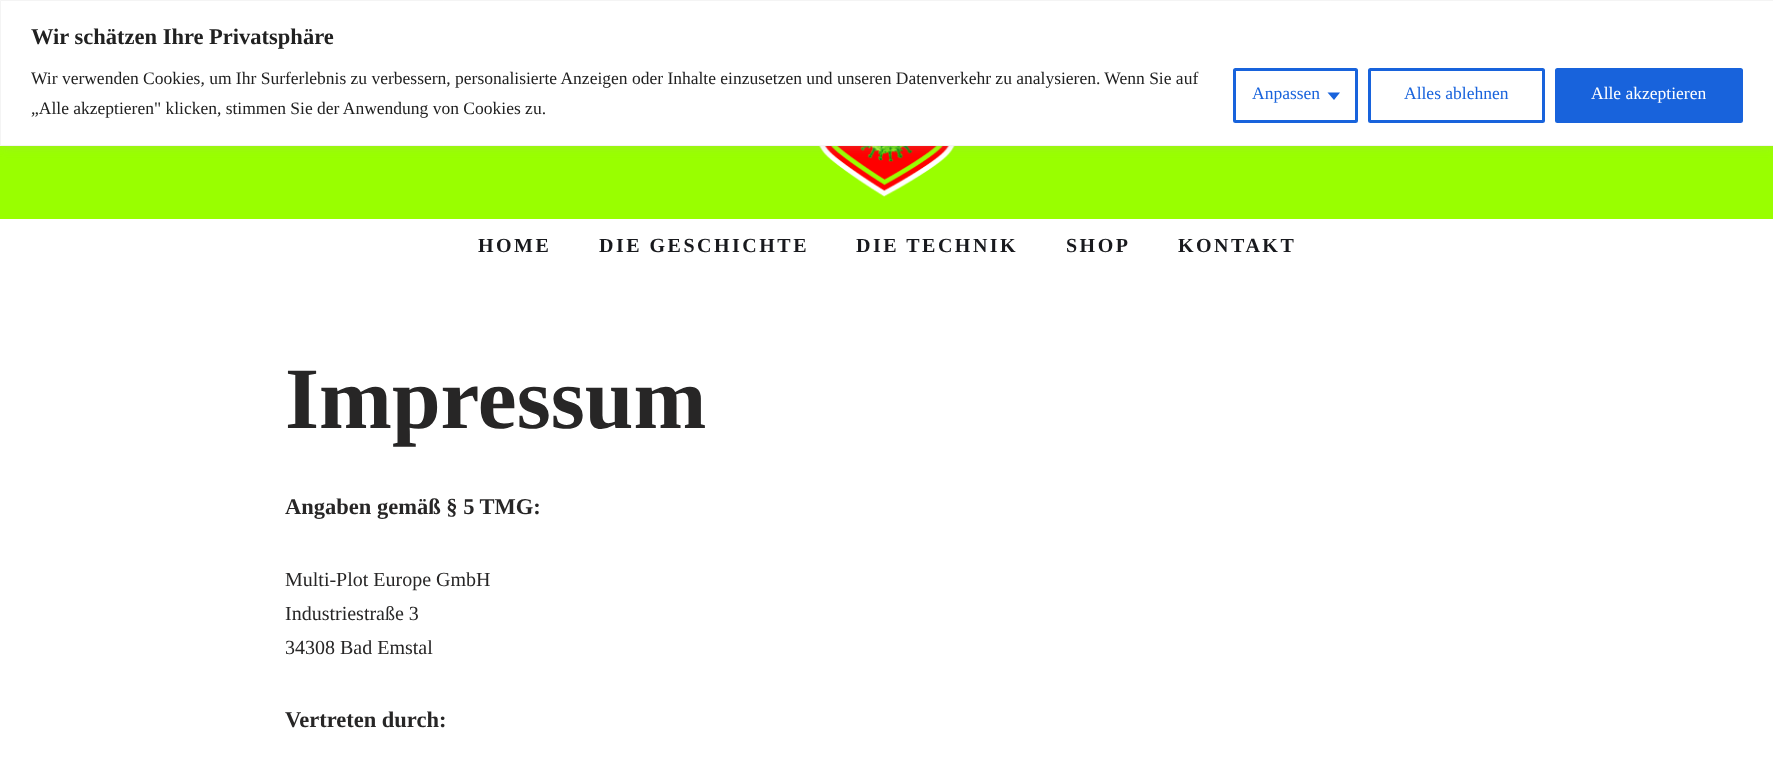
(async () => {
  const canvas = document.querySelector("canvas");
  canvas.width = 1773;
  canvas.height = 769;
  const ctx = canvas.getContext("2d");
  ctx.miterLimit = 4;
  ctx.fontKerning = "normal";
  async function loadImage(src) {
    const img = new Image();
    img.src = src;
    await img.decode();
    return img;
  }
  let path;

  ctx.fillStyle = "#ffffff";
  ctx.fillRect(0, 0, 1773, 769);
  ctx.fillStyle = "#99ff00";
  ctx.fillRect(0, 146, 1773, 73);
  ctx.drawImage(await loadImage("img/1.png"), 819, 146, 136, 51);
  ctx.fillStyle = "rgba(172, 171, 171, 0.3)";
  ctx.filter = "blur(6px)";
  ctx.beginPath();
  ctx.rect(0, -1, 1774, 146);
  ctx.fill();
  ctx.filter = "none";
  ctx.fillStyle = "#ffffff";
  ctx.beginPath();
  ctx.rect(0.5, 0.5, 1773, 145);
  ctx.fill();
  ctx.strokeStyle = "#f4f4f4";
  ctx.stroke();
  ctx.beginPath();
  ctx.roundRect(1234.5, 69.5, 122, 52, 1);
  ctx.strokeStyle = "#1863dc";
  ctx.lineWidth = 3;
  ctx.stroke();
  ctx.fillStyle = "#1863dc";
  path = new Path2D("M1327.5 92.5H1340L1334 100Z");
  ctx.fill(path);
  ctx.beginPath();
  ctx.roundRect(1369.5, 69.5, 174, 52, 1);
  ctx.stroke();
  ctx.beginPath();
  ctx.roundRect(1556.5, 69.5, 185, 52, 1);
  ctx.fill();
  ctx.stroke();
  ctx.font = "bold 22.5px Liberation Serif";
  ctx.fillStyle = "#212121";
  ctx.fillText("Wir schätzen Ihre Privatsphäre", 31, 44);
  ctx.font = "17.5px Liberation Serif";
  ctx.fillText("Wir verwenden Cookies, um Ihr Surferlebnis zu verbessern, personalisierte Anzeigen oder Inhalte einzusetzen und unseren Datenverkehr zu analysieren. Wenn Sie auf", 31, 84);
  ctx.fillText("„Alle akzeptieren\" klicken, stimmen Sie der Anwendung von Cookies zu.", 31, 114);
  ctx.fillStyle = "#1863dc";
  ctx.fillText("Anpassen", 1252, 99);
  ctx.fillText("Alles ablehnen", 1404, 99);
  ctx.fillStyle = "#ffffff";
  ctx.fillText("Alle akzeptieren", 1591, 99);
  ctx.letterSpacing = "2.5px";
  ctx.font = "bold 20px Liberation Serif";
  ctx.fillStyle = "#18191d";
  for (const [text, x, y] of [
    ["HOME", 478, 252],
    ["DIE GESCHICHTE", 599, 252],
    ["DIE TECHNIK", 856, 252],
    ["SHOP", 1066, 252],
    ["KONTAKT", 1178, 252],
  ]) {
    ctx.fillText(text, x, y);
  }
  ctx.letterSpacing = "0px";
  ctx.font = "bold 87.5px Liberation Serif";
  ctx.fillStyle = "#272626";
  ctx.fillText("Impressum", 285, 428);
  ctx.font = "bold 22.5px Liberation Serif";
  ctx.fillText("Angaben gemäß § 5 TMG:", 285, 514);
  ctx.font = "20px Liberation Serif";
  for (const [text, x, y] of [
    ["Multi-Plot Europe GmbH", 285, 586],
    ["Industriestraße 3", 285, 620],
    ["34308 Bad Emstal", 285, 654],
  ]) {
    ctx.fillText(text, x, y);
  }
  ctx.font = "bold 22.5px Liberation Serif";
  ctx.fillText("Vertreten durch:", 285, 727);
})();
